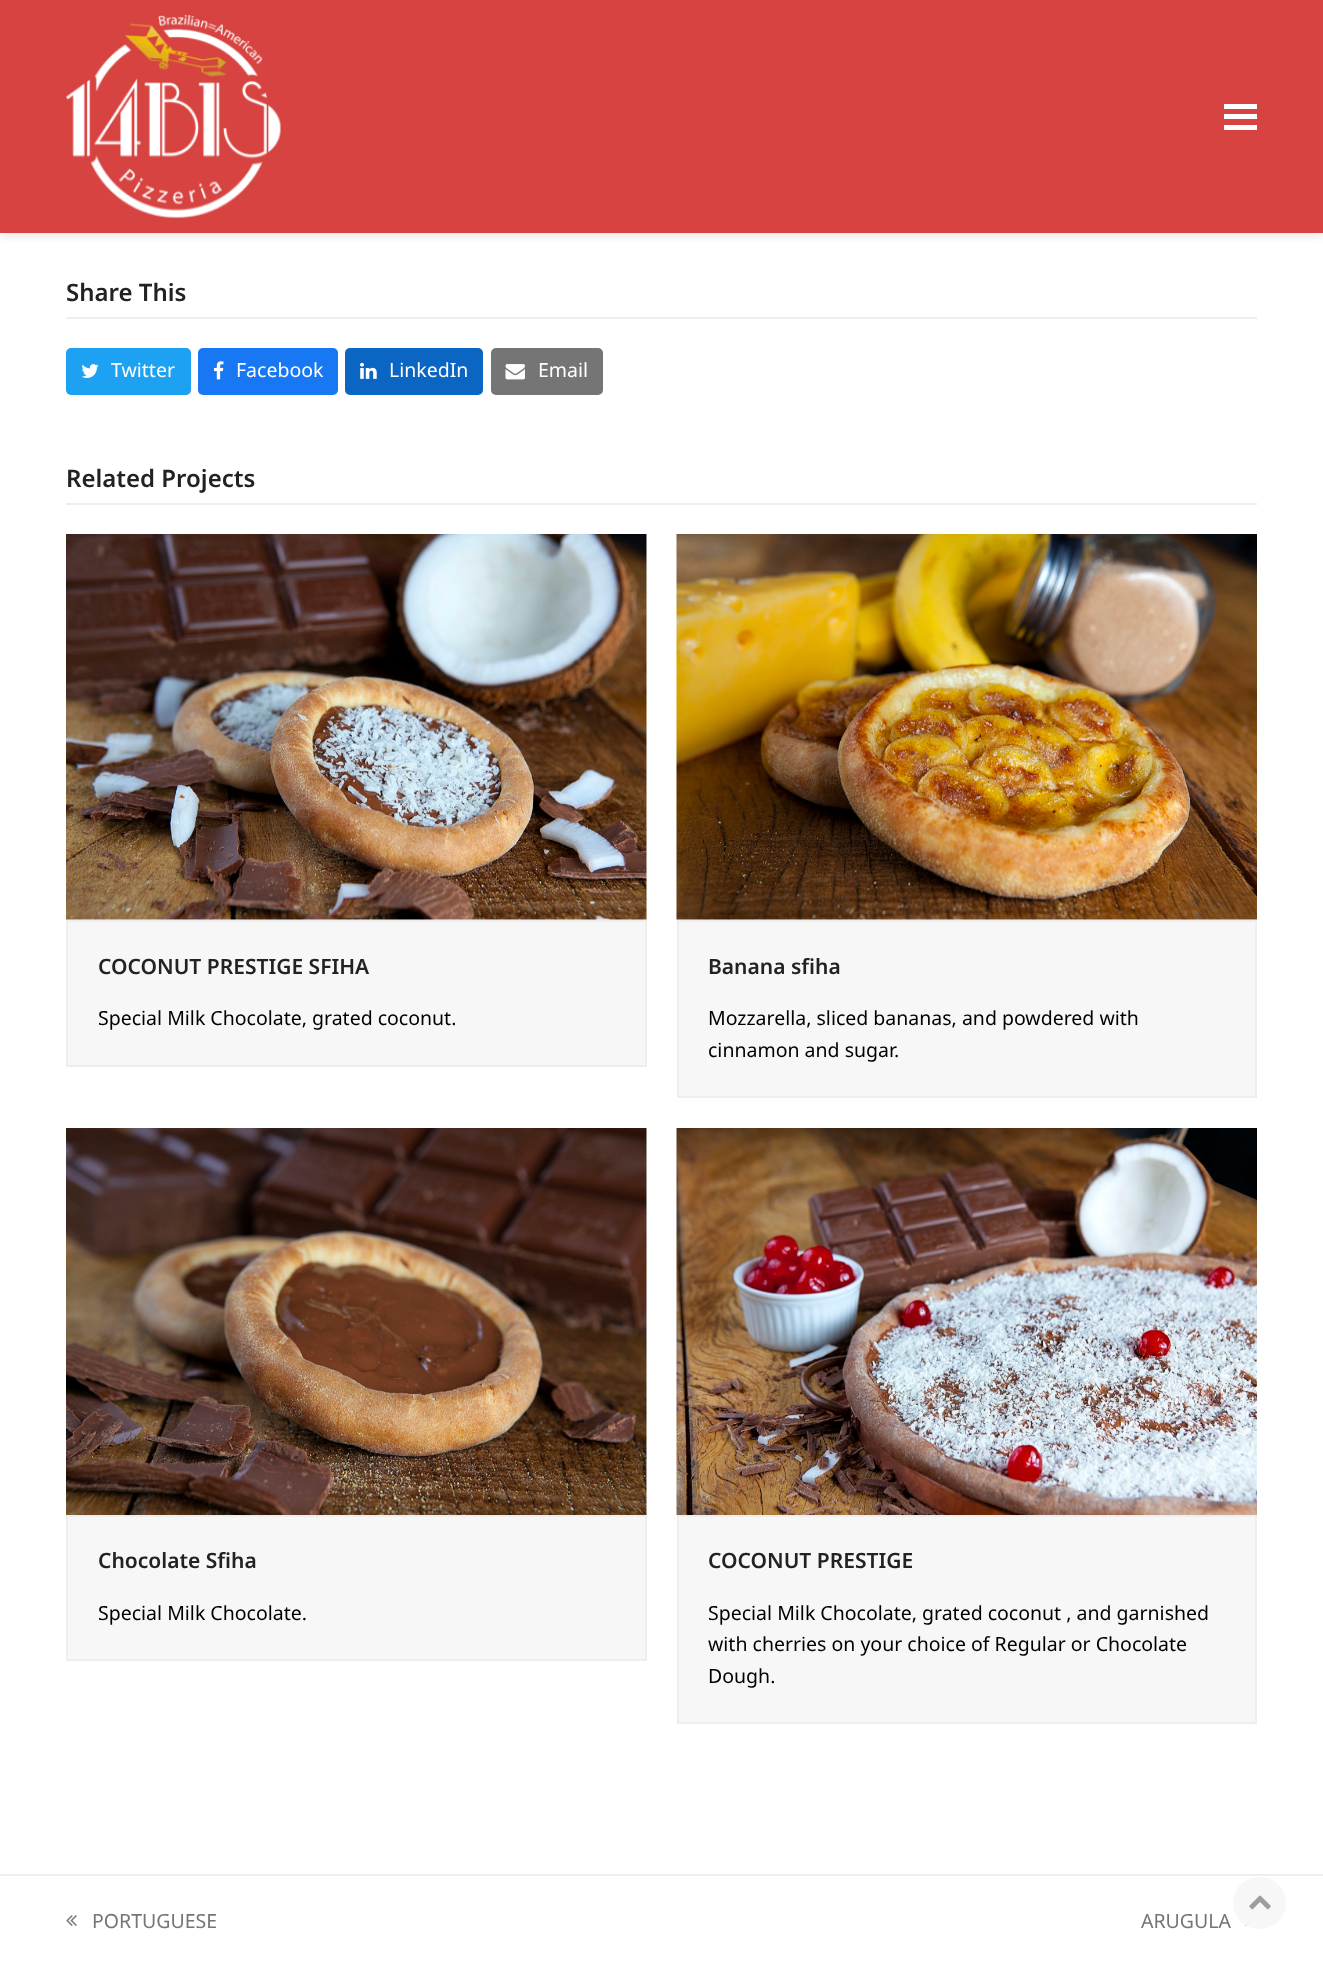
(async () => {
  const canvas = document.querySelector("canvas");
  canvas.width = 1323;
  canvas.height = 1966;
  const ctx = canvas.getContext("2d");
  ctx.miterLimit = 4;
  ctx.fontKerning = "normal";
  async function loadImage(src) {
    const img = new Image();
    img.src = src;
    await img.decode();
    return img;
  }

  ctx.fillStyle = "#ffffff";
  ctx.fillRect(0, 0, 1323, 1966);
  ctx.fillStyle = "rgba(0, 0, 0, 0.1)";
  ctx.filter = "blur(4px)";
  ctx.beginPath();
  ctx.rect(0, 3, 1323, 233);
  ctx.fill();
  ctx.filter = "none";
  ctx.fillStyle = "#d64340";
  ctx.fillRect(0, 0, 1323, 233);
  ctx.drawImage(await loadImage("img/1.png"), 66, 15, 215, 203);
  for (const [x, y, w, h, color] of [
    [1224, 114, 33, 5, "#ffffff"],
    [1224, 104, 33, 5, "#ffffff"],
    [1224, 125, 33, 5, "#ffffff"],
    [66, 317, 1191, 2, "#eeeeee"],
  ]) {
    ctx.fillStyle = color;
    ctx.fillRect(x, y, w, h);
  }
  ctx.fillStyle = "#1da1f2";
  ctx.beginPath();
  ctx.roundRect(66, 348, 125, 47, 5);
  ctx.fill();
  ctx.drawImage(await loadImage("img/2.png"), 81, 364, 18, 14);
  ctx.fillStyle = "#1877f2";
  ctx.beginPath();
  ctx.roundRect(198, 348, 140, 47, 5);
  ctx.fill();
  ctx.drawImage(await loadImage("img/3.png"), 214, 361, 10, 19);
  ctx.fillStyle = "#0a66c2";
  ctx.beginPath();
  ctx.roundRect(345, 348, 138, 47, 5);
  ctx.fill();
  ctx.drawImage(await loadImage("img/4.png"), 360, 362, 17, 17);
  ctx.fillStyle = "#757575";
  ctx.beginPath();
  ctx.roundRect(491, 348, 112, 47, 5);
  ctx.fill();
  ctx.drawImage(await loadImage("img/5.png"), 505, 364, 20, 16);
  ctx.fillStyle = "#eeeeee";
  ctx.fillRect(66, 503, 1191, 2);
  ctx.drawImage(await loadImage("img/6.png"), 66, 534, 581, 386);
  ctx.fillStyle = "#f7f7f7";
  ctx.beginPath();
  ctx.rect(67, 921, 579, 145);
  ctx.fill();
  ctx.strokeStyle = "#eeeeee";
  ctx.lineWidth = 2;
  ctx.stroke();
  ctx.drawImage(await loadImage("img/7.png"), 676, 534, 581, 386);
  ctx.beginPath();
  ctx.rect(678, 921, 578, 176);
  ctx.fill();
  ctx.stroke();
  ctx.drawImage(await loadImage("img/8.png"), 66, 1128, 581, 387);
  ctx.beginPath();
  ctx.rect(67, 1516, 579, 144);
  ctx.fill();
  ctx.stroke();
  ctx.drawImage(await loadImage("img/9.png"), 676, 1128, 581, 387);
  ctx.beginPath();
  ctx.rect(678, 1516, 578, 207);
  ctx.fill();
  ctx.stroke();
  ctx.fillStyle = "#eeeeee";
  ctx.fillRect(0, 1874, 1323, 2);
  ctx.drawImage(await loadImage("img/10.png"), 66, 1915, 11, 11);
  ctx.drawImage(await loadImage("img/11.png"), 1245, 1924, 2, 2);
  ctx.fillStyle = "#f7f7f7";
  ctx.beginPath();
  ctx.roundRect(1233, 1877, 53, 52, 26);
  ctx.fill();
  ctx.drawImage(await loadImage("img/12.png"), 1249, 1895, 22, 15);
  ctx.font = "600 24px Noto Sans";
  ctx.fillStyle = "#222222";
  ctx.fillText("Share This", 66, 301);
  ctx.font = "19.5px Noto Sans";
  ctx.fillStyle = "#ffffff";
  for (const [text, x, y] of [
    ["Twitter", 111, 377],
    ["Facebook", 236, 377],
    ["LinkedIn", 389, 377],
    ["Email", 538, 377],
  ]) {
    ctx.fillText(text, x, y);
  }
  ctx.font = "600 24px Noto Sans";
  ctx.fillStyle = "#222222";
  ctx.fillText("Related Projects", 66, 487);
  ctx.font = "600 21px Noto Sans";
  ctx.fillText("COCONUT PRESTIGE SFIHA", 98, 974);
  ctx.font = "19.5px Noto Sans";
  ctx.fillStyle = "#000000";
  ctx.fillText("Special Milk Chocolate, grated coconut.", 98, 1025);
  ctx.font = "600 21px Noto Sans";
  ctx.fillStyle = "#222222";
  ctx.fillText("Banana sfiha", 708, 974);
  ctx.font = "19.5px Noto Sans";
  ctx.fillStyle = "#000000";
  ctx.fillText("Mozzarella, sliced bananas, and powdered with", 708, 1025);
  ctx.fillText("cinnamon and sugar.", 708, 1057);
  ctx.font = "600 21px Noto Sans";
  ctx.fillStyle = "#222222";
  ctx.fillText("Chocolate Sfiha", 98, 1568);
  ctx.font = "19.5px Noto Sans";
  ctx.fillStyle = "#000000";
  ctx.fillText("Special Milk Chocolate.", 98, 1620);
  ctx.font = "600 21px Noto Sans";
  ctx.fillStyle = "#222222";
  ctx.fillText("COCONUT PRESTIGE", 708, 1568);
  ctx.font = "19.5px Noto Sans";
  ctx.fillStyle = "#000000";
  for (const [text, x, y] of [
    ["Special Milk Chocolate, grated coconut , and garnished", 708, 1620],
    ["with cherries on your choice of Regular or Chocolate", 708, 1651],
    ["Dough.", 708, 1683],
  ]) {
    ctx.fillText(text, x, y);
  }
  ctx.fillStyle = "#757575";
  ctx.fillText("PORTUGUESE", 92, 1928);
  ctx.fillText("ARUGULA", 1141, 1928);
})();
